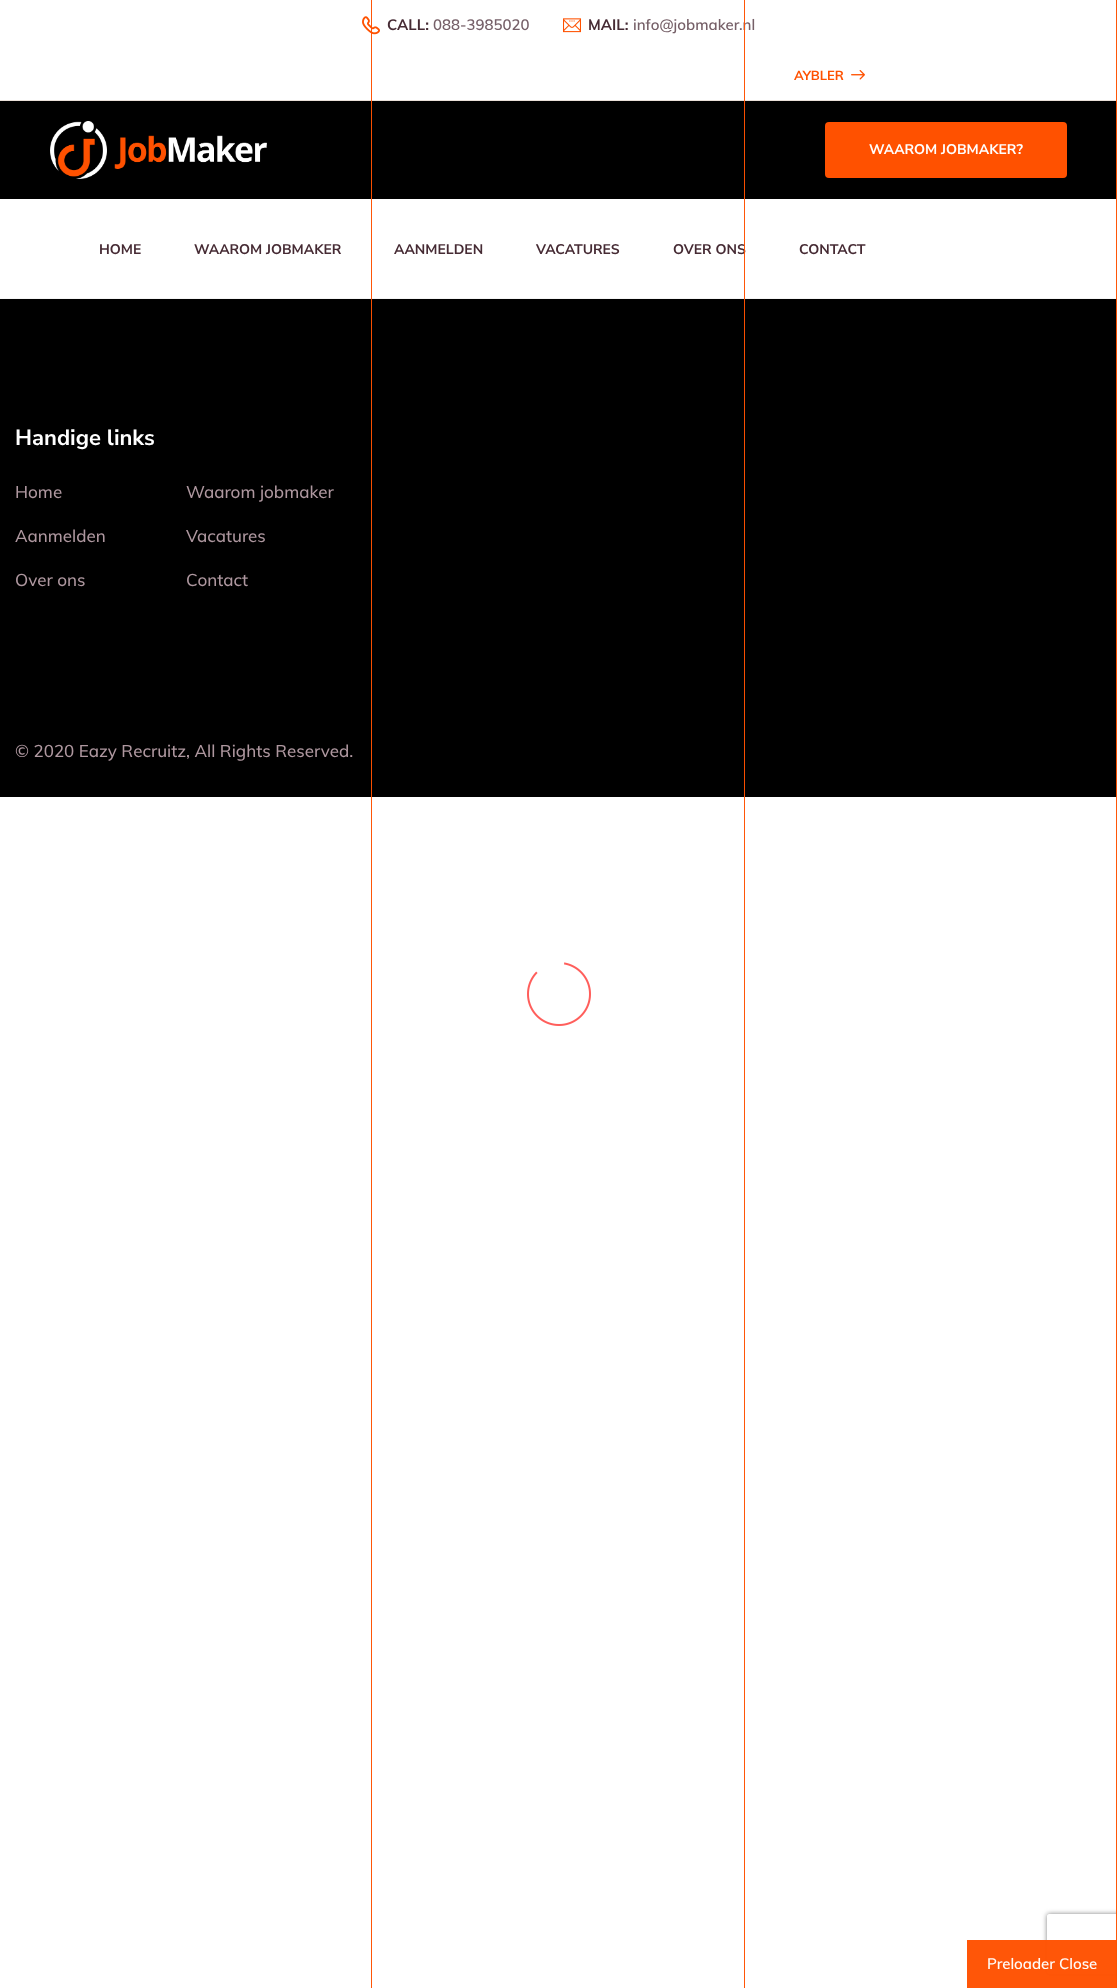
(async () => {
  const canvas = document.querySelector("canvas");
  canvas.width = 1117;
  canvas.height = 1988;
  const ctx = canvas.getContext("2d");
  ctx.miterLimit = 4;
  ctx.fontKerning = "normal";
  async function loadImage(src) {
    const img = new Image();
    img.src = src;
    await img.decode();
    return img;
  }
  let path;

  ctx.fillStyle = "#ffffff";
  ctx.fillRect(0, 0, 1117, 1988);
  ctx.fillStyle = "#000000";
  ctx.fillRect(0, 299, 1117, 498);
  ctx.save();
  ctx.beginPath();
  ctx.rect(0, 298, 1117, 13);
  ctx.clip();
  ctx.fillStyle = "rgba(0, 0, 0, 0.05)";
  ctx.filter = "blur(10px)";
  ctx.beginPath();
  ctx.rect(0, 10, 1117, 298);
  ctx.fill();
  ctx.filter = "none";
  ctx.restore();
  ctx.fillStyle = "#eae0d9";
  ctx.fillRect(0, 100, 1117, 1);
  ctx.drawImage(await loadImage("img/1.png"), 362, 16, 18, 19);
  ctx.drawImage(await loadImage("img/2.png"), 563, 18, 18, 15);
  ctx.drawImage(await loadImage("img/3.png"), 851, 70, 14, 10);
  ctx.fillStyle = "#000000";
  ctx.fillRect(0, 101, 1117, 98);
  ctx.fillStyle = "#ff5100";
  ctx.beginPath();
  ctx.roundRect(825, 122, 242, 56, 4);
  ctx.fill();
  ctx.drawImage(await loadImage("img/4.png"), 50, 121, 217, 58);
  ctx.fillStyle = "rgba(255, 81, 0, 0.97)";
  ctx.fillRect(371, 0, 1, 1988);
  ctx.drawImage(await loadImage("img/5.png"), 527, 962, 64, 64);
  ctx.save();
  path = new Path2D("M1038 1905H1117V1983H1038ZM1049 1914H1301C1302 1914 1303 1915 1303 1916V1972C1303 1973 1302 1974 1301 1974H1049C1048 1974 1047 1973 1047 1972V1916C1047 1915 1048 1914 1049 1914Z");
  ctx.clip(path, "evenodd");
  ctx.fillStyle = "#808080";
  ctx.filter = "blur(2.5px)";
  ctx.beginPath();
  ctx.roundRect(1047, 1914, 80, 60, 2);
  ctx.fill();
  ctx.filter = "none";
  ctx.restore();
  ctx.fillRect(1116, 0, 1, 1988);
  ctx.fillRect(967, 1940, 150, 48);
  ctx.font = "bold 15px Muli";
  ctx.fillStyle = "#462b34";
  ctx.fillText("CALL:", 387, 30);
  ctx.font = "600 15px Muli";
  ctx.fillStyle = "#766068";
  ctx.fillText("088-3985020", 433, 30);
  ctx.font = "bold 15px Muli";
  ctx.fillStyle = "#462b34";
  ctx.fillText("MAIL:", 588, 30);
  ctx.font = "600 15px Muli";
  ctx.fillStyle = "#766068";
  ctx.fillText("info@jobmaker.nl", 633, 30);
  ctx.font = "bold 13px Muli";
  ctx.fillStyle = "#ff5100";
  ctx.fillText("AYBLER", 794, 80);
  ctx.font = "bold 14px Nunito Sans";
  ctx.fillStyle = "#ffffff";
  ctx.fillText("WAAROM JOBMAKER?", 869, 154);
  ctx.fillStyle = "#462b34";
  for (const [text, x, y] of [
    ["HOME", 99, 254],
    ["WAAROM JOBMAKER", 194, 254],
    ["AANMELDEN", 394, 254],
    ["VACATURES", 536, 254],
    ["OVER ONS", 673, 254],
    ["CONTACT", 799, 254],
  ]) {
    ctx.fillText(text, x, y);
  }
  ctx.font = "bold 22px Nunito Sans";
  ctx.fillStyle = "#ffffff";
  ctx.fillText("Handige links", 15, 445);
  ctx.font = "500 17px Muli";
  ctx.fillStyle = "#ae979f";
  for (const [text, x, y] of [
    ["Home", 15, 498],
    ["Waarom jobmaker", 186, 498],
    ["Aanmelden", 15, 542],
    ["Vacatures", 186, 542],
    ["Over ons", 15, 586],
    ["Contact", 186, 586],
    ["© 2020 Eazy Recruitz, All Rights Reserved.", 15, 757],
  ]) {
    ctx.fillText(text, x, y);
  }
  ctx.fillStyle = "rgba(255, 81, 0, 0.97)";
  ctx.fillRect(744, 0, 1, 1988);
  ctx.font = "600 15px Muli";
  ctx.fillStyle = "#fffaf7";
  ctx.fillText("Preloader Close", 987, 1969);
})();
